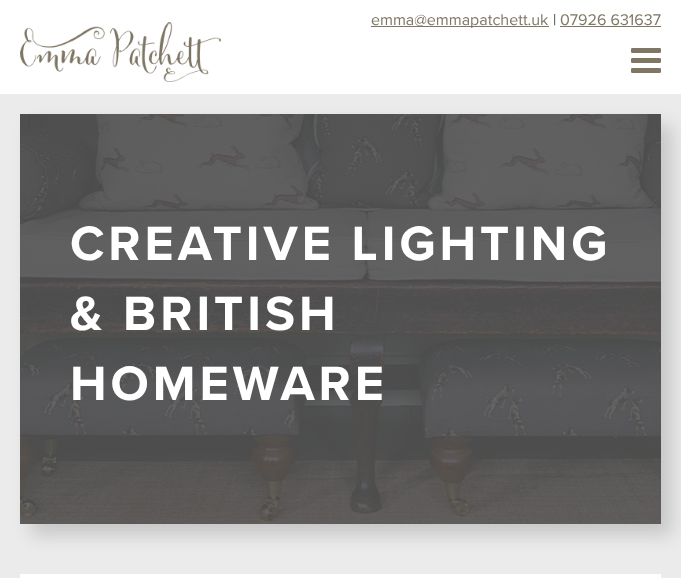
(async () => {
  const canvas = document.querySelector("canvas");
  canvas.width = 681;
  canvas.height = 578;
  const ctx = canvas.getContext("2d");
  ctx.miterLimit = 4;
  ctx.fontKerning = "normal";
  async function loadImage(src) {
    const img = new Image();
    img.src = src;
    await img.decode();
    return img;
  }

  ctx.fillStyle = "#ebebeb";
  ctx.fillRect(0, 0, 681, 578);
  ctx.fillStyle = "#ffffff";
  ctx.fillRect(0, 0, 681, 94);
  ctx.drawImage(await loadImage("img/1.png"), 20, 22, 201, 60);
  ctx.fillStyle = "#7f7664";
  ctx.fillRect(371, 26, 178, 1);
  ctx.fillRect(560, 26, 101, 1);
  ctx.drawImage(await loadImage("img/2.png"), 631, 48, 30, 25);
  ctx.fillStyle = "rgba(146, 146, 146, 0.4)";
  ctx.filter = "blur(9px)";
  ctx.beginPath();
  ctx.rect(31, 125, 641, 410);
  ctx.fill();
  ctx.filter = "none";
  ctx.drawImage(await loadImage("img/3.png"), 20, 114, 641, 410);
  ctx.fillStyle = "#ffffff";
  ctx.fillRect(20, 574, 641, 4);
  ctx.font = "16px Proxima Nova";
  ctx.fillStyle = "#7f7664";
  ctx.fillText("emma@emmapatchett.uk", 371, 25);
  ctx.fillStyle = "#404040";
  ctx.fillText("|", 553, 25);
  ctx.fillStyle = "#7f7664";
  ctx.fillText("07926 631637", 560, 25);
  ctx.letterSpacing = "4px";
  ctx.font = "bold 50px Proxima Nova";
  ctx.fillStyle = "#ffffff";
  for (const [text, x, y] of [
    ["CREATIVE LIGHTING", 70, 260],
    ["& BRITISH", 70, 330],
    ["HOMEWARE", 70, 400],
  ]) {
    ctx.fillText(text, x, y);
  }
})();
